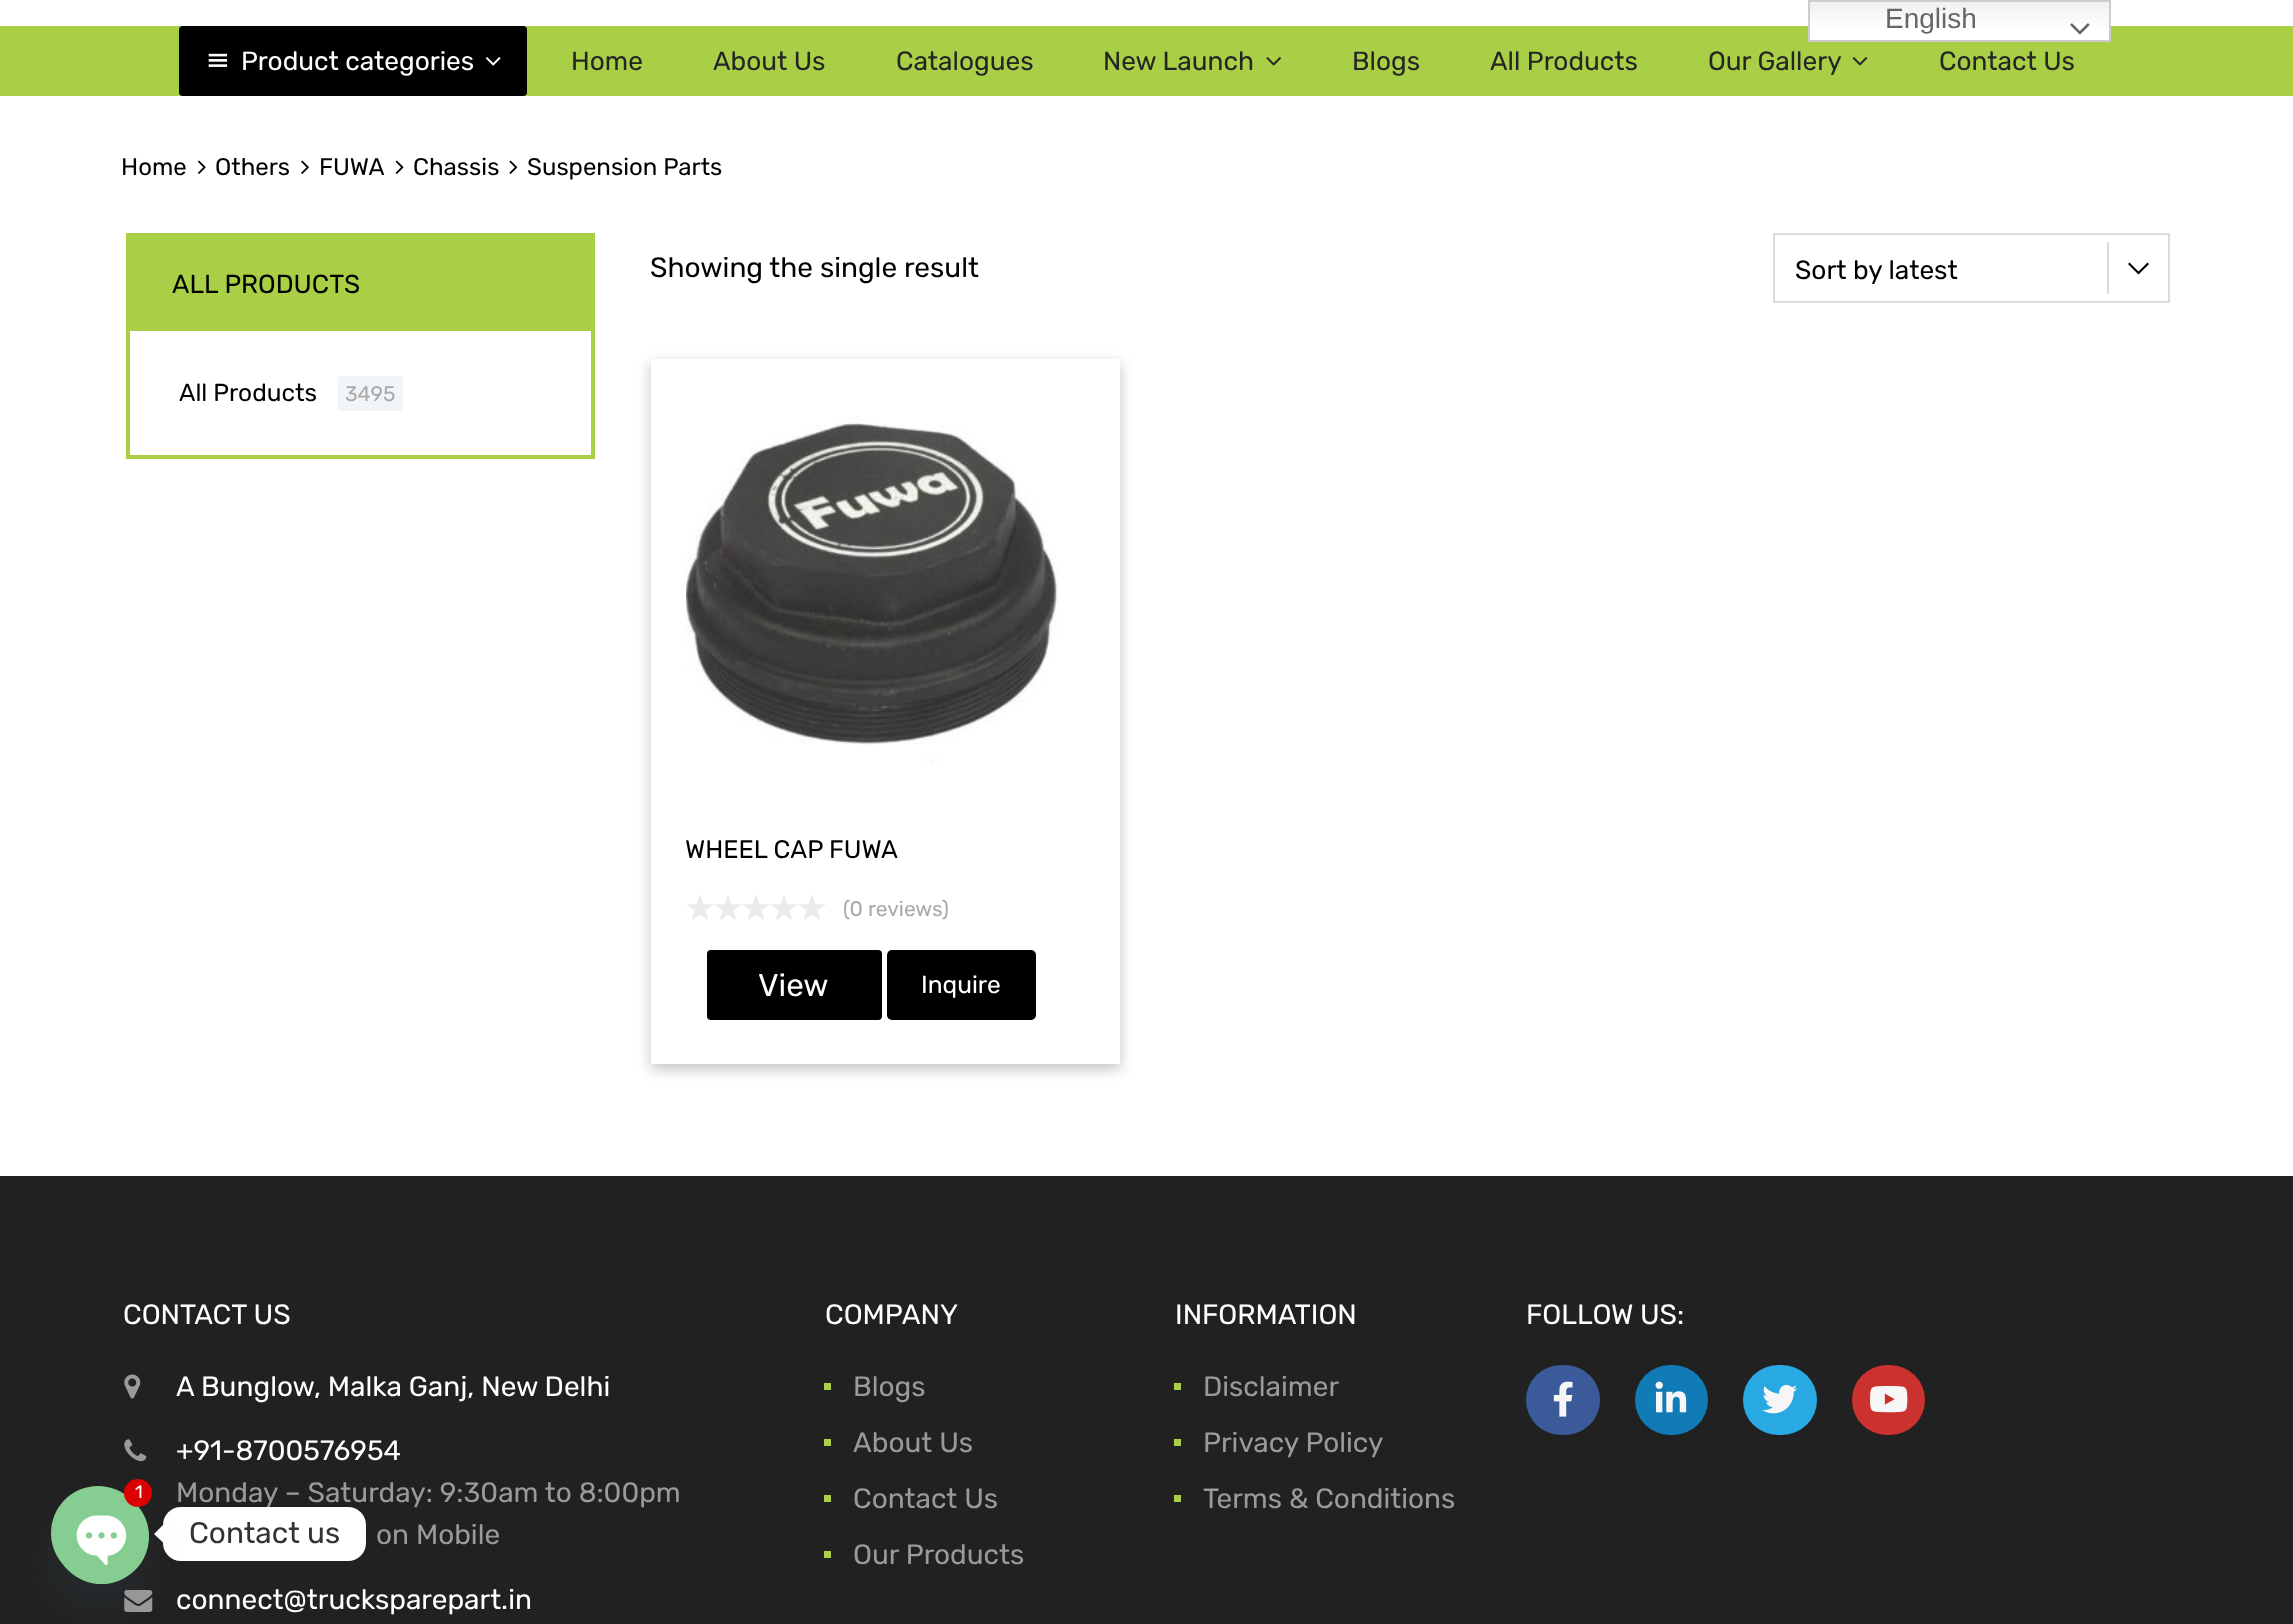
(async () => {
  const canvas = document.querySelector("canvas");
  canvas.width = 2293;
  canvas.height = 1624;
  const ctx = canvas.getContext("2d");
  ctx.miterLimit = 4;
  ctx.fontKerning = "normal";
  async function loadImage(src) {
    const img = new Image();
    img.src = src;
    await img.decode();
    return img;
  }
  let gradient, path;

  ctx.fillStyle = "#ffffff";
  ctx.fillRect(0, 0, 2293, 1624);
  ctx.fillStyle = "#a8cf45";
  ctx.fillRect(0, 26, 2293, 70);
  gradient = ctx.createLinearGradient(1959, 0, 1959, 42);
  gradient.addColorStop(0, "#efefef");
  gradient.addColorStop(0.7, "#ffffff");
  ctx.fillStyle = gradient;
  ctx.fillRect(1810, 2, 299, 38);
  ctx.strokeStyle = "#cccccc";
  ctx.lineWidth = 2;
  ctx.strokeRect(1809, 1, 301, 40);
  ctx.drawImage(await loadImage("img/1.png"), 2070, 23, 20, 12);
  ctx.fillStyle = "#000000";
  ctx.beginPath();
  ctx.roundRect(179, 26, 348, 70, 4);
  ctx.fill();
  ctx.drawImage(await loadImage("img/2.png"), 208, 53, 20, 14);
  ctx.drawImage(await loadImage("img/3.png"), 485, 57, 16, 9);
  ctx.drawImage(await loadImage("img/4.png"), 1266, 57, 15, 9);
  ctx.drawImage(await loadImage("img/5.png"), 1852, 57, 16, 9);
  ctx.drawImage(await loadImage("img/6.png"), 198, 160, 8, 14);
  ctx.drawImage(await loadImage("img/7.png"), 301, 160, 8, 14);
  ctx.drawImage(await loadImage("img/8.png"), 395, 160, 9, 14);
  ctx.drawImage(await loadImage("img/9.png"), 509, 160, 9, 14);
  ctx.strokeStyle = "#a8cf45";
  ctx.lineWidth = 4;
  ctx.strokeRect(128, 235, 465, 222);
  ctx.fillStyle = "#a8cf45";
  ctx.fillRect(130, 237, 461, 94);
  ctx.fillStyle = "#f1f5f7";
  ctx.beginPath();
  ctx.roundRect(338, 376, 65, 35, 4);
  ctx.fill();
  ctx.fillStyle = "#dbdbdb";
  ctx.fillRect(2107, 242, 2, 52);
  ctx.fillStyle = "#000000";
  path = new Path2D("M2128 264L2138.5 274.5L2149 264L2147.5 262.5L2138.5 271.5L2129.5 262.5Z");
  ctx.fill(path);
  ctx.strokeStyle = "#dbdbdb";
  ctx.lineWidth = 2;
  ctx.strokeRect(1774, 234, 395, 68);
  ctx.save();
  path = new Path2D("M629 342H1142V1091H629ZM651 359H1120V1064H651Z");
  ctx.clip(path, "evenodd");
  ctx.fillStyle = "rgba(0, 0, 0, 0.24)";
  ctx.filter = "blur(7px)";
  ctx.beginPath();
  ctx.rect(651, 364, 469, 705);
  ctx.fill();
  ctx.filter = "none";
  ctx.restore();
  ctx.drawImage(await loadImage("img/10.png"), 686, 416, 372, 348);
  ctx.drawImage(await loadImage("img/11.png"), 686, 895, 140, 26);
  ctx.beginPath();
  ctx.roundRect(707, 950, 175, 70, 4);
  ctx.fill();
  ctx.beginPath();
  ctx.roundRect(887, 950, 149, 70, 5);
  ctx.fill();
  ctx.fillStyle = "#212121";
  ctx.fillRect(0, 1176, 2293, 448);
  ctx.drawImage(await loadImage("img/12.png"), 124, 1374, 17, 25);
  ctx.drawImage(await loadImage("img/13.png"), 124, 1439, 23, 23);
  ctx.drawImage(await loadImage("img/14.png"), 124, 1590, 29, 22);
  for (const [x, y, w, h, color] of [
    [824, 1383, 7, 7, "#a8cf45"],
    [824, 1439, 7, 7, "#a8cf45"],
    [824, 1495, 7, 7, "#a8cf45"],
    [824, 1551, 7, 7, "#a8cf45"],
    [1174, 1383, 7, 7, "#a8cf45"],
    [1174, 1439, 7, 7, "#a8cf45"],
    [1174, 1495, 7, 7, "#a8cf45"],
  ]) {
    ctx.fillStyle = color;
    ctx.fillRect(x, y, w, h);
  }
  ctx.fillStyle = "#3b5a9a";
  ctx.beginPath();
  ctx.roundRect(1526, 1365, 74, 70, 35);
  ctx.fill();
  ctx.drawImage(await loadImage("img/15.png"), 1553, 1381, 20, 36);
  ctx.fillStyle = "#117bb7";
  ctx.beginPath();
  ctx.roundRect(1635, 1365, 73, 70, 35);
  ctx.fill();
  ctx.drawImage(await loadImage("img/16.png"), 1655, 1381, 32, 32);
  ctx.fillStyle = "#28a9e2";
  ctx.beginPath();
  ctx.roundRect(1743, 1365, 74, 70, 35);
  ctx.fill();
  ctx.drawImage(await loadImage("img/17.png"), 1762, 1384, 36, 30);
  ctx.fillStyle = "#cb312f";
  ctx.beginPath();
  ctx.roundRect(1852, 1365, 73, 70, 35);
  ctx.fill();
  ctx.drawImage(await loadImage("img/18.png"), 1870, 1386, 38, 27);
  ctx.fillStyle = "#ffffff";
  path = new Path2D("M163 1525V1542.5L154 1534Z");
  ctx.fill(path);
  ctx.font = "28px Liberation Sans";
  ctx.fillStyle = "#666666";
  ctx.fillText("English", 1885, 28);
  ctx.font = "300 26.25px Rubik";
  ctx.fillStyle = "#ffffff";
  ctx.fillText("Product categories", 241, 70);
  ctx.fillStyle = "#252525";
  for (const [text, x, y] of [
    ["Home", 571, 70],
    ["About Us", 713, 70],
    ["Catalogues", 896, 70],
    ["New Launch", 1103, 70],
    ["Blogs", 1352, 70],
    ["All Products", 1490, 70],
    ["Our Gallery", 1708, 70],
    ["Contact Us", 1939, 70],
  ]) {
    ctx.fillText(text, x, y);
  }
  ctx.font = "300 24px Rubik";
  ctx.fillStyle = "#000000";
  for (const [text, x, y] of [
    ["Home", 121, 175],
    ["Others", 215, 175],
    ["FUWA", 319, 175],
    ["Chassis", 413, 175],
    ["Suspension Parts", 527, 175],
  ]) {
    ctx.fillText(text, x, y);
  }
  ctx.font = "300 26px Rubik";
  ctx.fillText("ALL PRODUCTS", 172, 293);
  ctx.font = "300 24.5px Rubik";
  ctx.fillText("All Products", 179, 401);
  ctx.font = "300 21px Rubik";
  ctx.fillStyle = "#a9a9a9";
  ctx.fillText("3495", 345, 401);
  ctx.font = "300 28px Rubik";
  ctx.fillStyle = "#000000";
  ctx.fillText("Showing the single result", 650, 277);
  ctx.font = "300 26.25px Rubik";
  ctx.fillText("Sort by latest", 1795, 279);
  ctx.font = "300 25.25px Rubik";
  ctx.fillText("WHEEL CAP FUWA", 685, 858);
  ctx.font = "300 21px Rubik";
  ctx.fillStyle = "#a9a9a9";
  ctx.fillText("(0 reviews)", 843, 916);
  ctx.font = "300 31.5px Rubik";
  ctx.fillStyle = "#ffffff";
  ctx.fillText("View", 758, 996);
  ctx.font = "300 24.5px Rubik";
  ctx.fillText("Inquire", 921, 993);
  ctx.font = "300 28px Rubik";
  for (const [text, x, y] of [
    ["CONTACT US", 123, 1324],
    ["A Bunglow, Malka Ganj, New Delhi", 176, 1396],
    ["+91-8700576954", 176, 1460],
  ]) {
    ctx.fillText(text, x, y);
  }
  ctx.fillStyle = "#9a9a9a";
  ctx.fillText("Monday – Saturday: 9:30am to 8:00pm", 176, 1502);
  ctx.fillText("on Mobile", 376, 1544);
  ctx.fillStyle = "#ffffff";
  ctx.fillText("connect@trucksparepart.in", 176, 1609);
  ctx.fillText("COMPANY", 825, 1324);
  ctx.fillStyle = "#9a9a9a";
  for (const [text, x, y] of [
    ["Blogs", 853, 1396],
    ["About Us", 853, 1452],
    ["Contact Us", 853, 1508],
    ["Our Products", 853, 1564],
  ]) {
    ctx.fillText(text, x, y);
  }
  ctx.fillStyle = "#ffffff";
  ctx.fillText("INFORMATION", 1175, 1324);
  ctx.fillStyle = "#9a9a9a";
  for (const [text, x, y] of [
    ["Disclaimer", 1203, 1396],
    ["Privacy Policy", 1203, 1452],
    ["Terms & Conditions", 1203, 1508],
  ]) {
    ctx.fillText(text, x, y);
  }
  ctx.fillStyle = "#ffffff";
  ctx.fillText("FOLLOW US:", 1526, 1324);
  ctx.beginPath();
  ctx.roundRect(163, 1507, 203, 54, 18);
  ctx.fill();
  ctx.fillStyle = "rgba(73, 104, 126, 0.16)";
  ctx.filter = "blur(21px)";
  ctx.beginPath();
  ctx.roundRect(51, 1514, 94, 94, 47);
  ctx.fill();
  ctx.filter = "none";
  ctx.fillStyle = "#86cd91";
  ctx.beginPath();
  ctx.arc(98, 1533, 47, 0, Math.PI * 2);
  ctx.fill();
  ctx.beginPath();
  ctx.arc(101.5, 1536.5, 47.5, 0, Math.PI * 2);
  ctx.fill();
  ctx.drawImage(await loadImage("img/19.png"), 67, 1501, 82, 83);
  ctx.fillStyle = "#dd0000";
  ctx.beginPath();
  ctx.arc(138, 1493, 14, 0, Math.PI * 2);
  ctx.fill();
  ctx.font = "300 18px Rubik";
  ctx.fillStyle = "#ffffff";
  ctx.fillText("1", 135, 1498);
  ctx.font = "300 29.75px Rubik";
  ctx.fillStyle = "#333333";
  ctx.fillText("Contact us", 189, 1543);
})();
